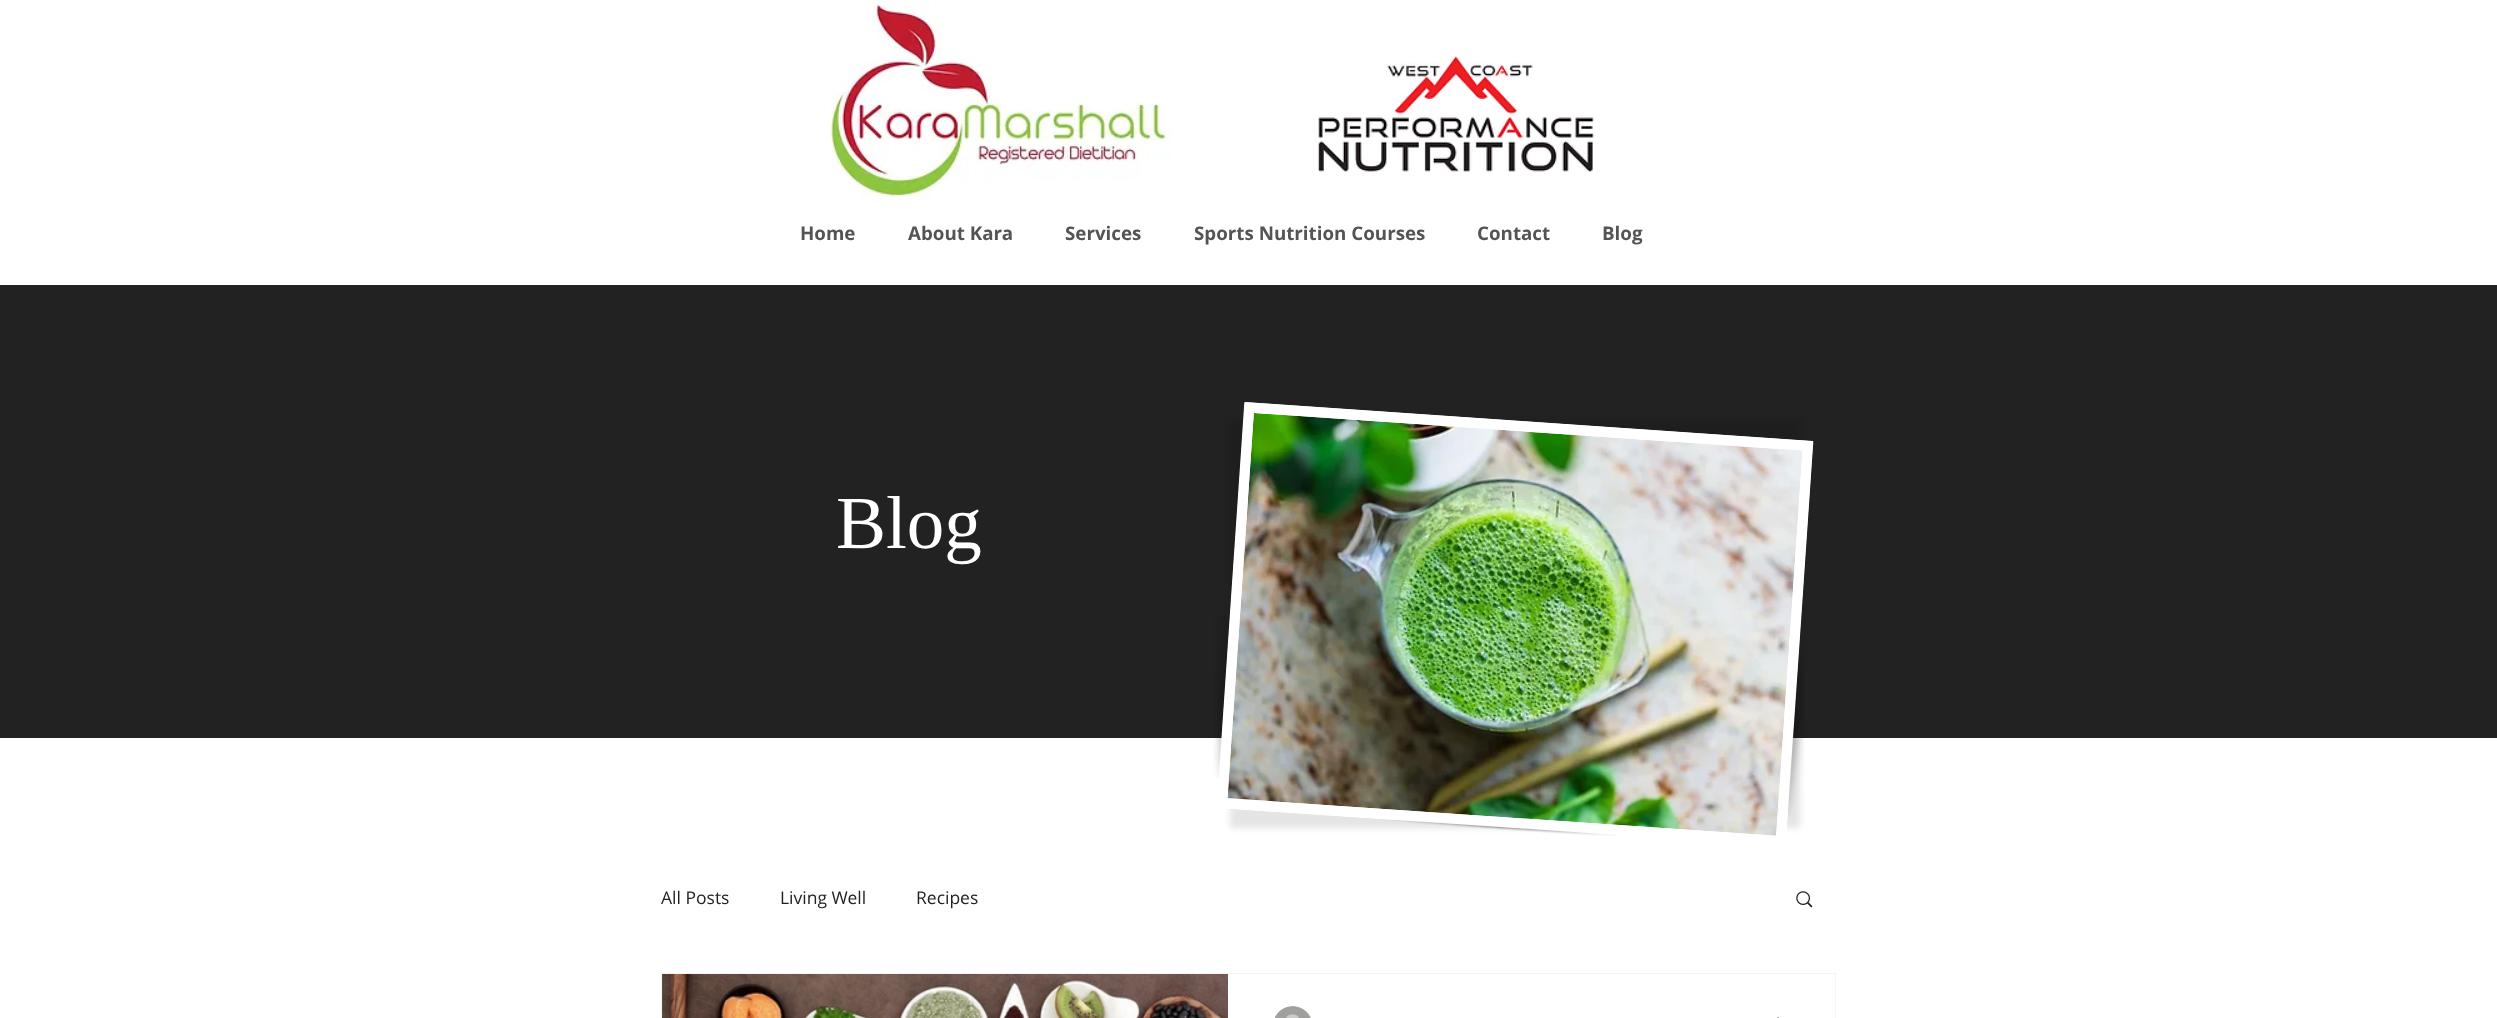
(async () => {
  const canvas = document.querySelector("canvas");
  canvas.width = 2497;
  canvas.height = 1018;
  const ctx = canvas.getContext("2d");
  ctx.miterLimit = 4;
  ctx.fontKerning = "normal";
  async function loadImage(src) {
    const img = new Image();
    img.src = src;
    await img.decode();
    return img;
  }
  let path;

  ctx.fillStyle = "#ffffff";
  ctx.fillRect(0, 0, 2497, 1018);
  ctx.drawImage(await loadImage("img/1.png"), 830, 0, 341, 200);
  ctx.drawImage(await loadImage("img/2.png"), 1318, 56, 276, 116);
  ctx.fillStyle = "#222222";
  ctx.fillRect(0, 285, 2497, 453);
  ctx.fillStyle = "rgba(0, 0, 0, 0.1)";
  ctx.filter = "blur(3px)";
  ctx.beginPath();
  ctx.rect(1230, 421, 570, 407);
  ctx.fill();
  ctx.filter = "none";
  ctx.fillStyle = "#ffffff";
  path = new Path2D("M1245 402L1813 441L1785 846L1217 808Z");
  ctx.fill(path);
  path = new Path2D("M1249 407.5L1808 446L1781 841L1222 803Z");
  ctx.strokeStyle = "#ffffff";
  ctx.lineWidth = 10;
  ctx.stroke(path);
  ctx.drawImage(await loadImage("img/3.png"), 1227, 413, 575, 423);
  ctx.drawImage(await loadImage("img/4.png"), 1384, 819, 234, 17);
  ctx.drawImage(await loadImage("img/5.png"), 1213, 616, 17, 162);
  ctx.drawImage(await loadImage("img/6.png"), 1788, 654, 16, 163);
  ctx.drawImage(await loadImage("img/7.png"), 1796, 891, 17, 17);
  ctx.strokeStyle = "#f4f4f4";
  ctx.lineWidth = 1;
  ctx.strokeRect(661.5, 973.5, 1174, 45);
  ctx.drawImage(await loadImage("img/8.png"), 662, 974, 1, 44);
  ctx.drawImage(await loadImage("img/9.png"), 663, 974, 565, 44);
  ctx.drawImage(await loadImage("img/10.png"), 1274, 1006, 37, 12);
  ctx.drawImage(await loadImage("img/11.png"), 1777, 1017, 3, 1);
  ctx.font = "bold 18.75px Open Sans";
  ctx.fillStyle = "#555353";
  for (const [text, x, y] of [
    ["Home", 800, 240],
    ["About Kara", 908, 240],
    ["Services", 1065, 240],
    ["Sports Nutrition Courses", 1194, 240],
    ["Contact", 1477, 240],
    ["Blog", 1602, 240],
  ]) {
    ctx.fillText(text, x, y);
  }
  ctx.font = "75px Liberation Serif";
  ctx.fillStyle = "#ffffff";
  ctx.fillText("Blog", 836, 548);
  ctx.font = "17.5px Open Sans";
  ctx.fillStyle = "#222222";
  for (const [text, x, y] of [
    ["All Posts", 661, 904],
    ["Living Well", 780, 904],
    ["Recipes", 916, 904],
  ]) {
    ctx.fillText(text, x, y);
  }
})();
